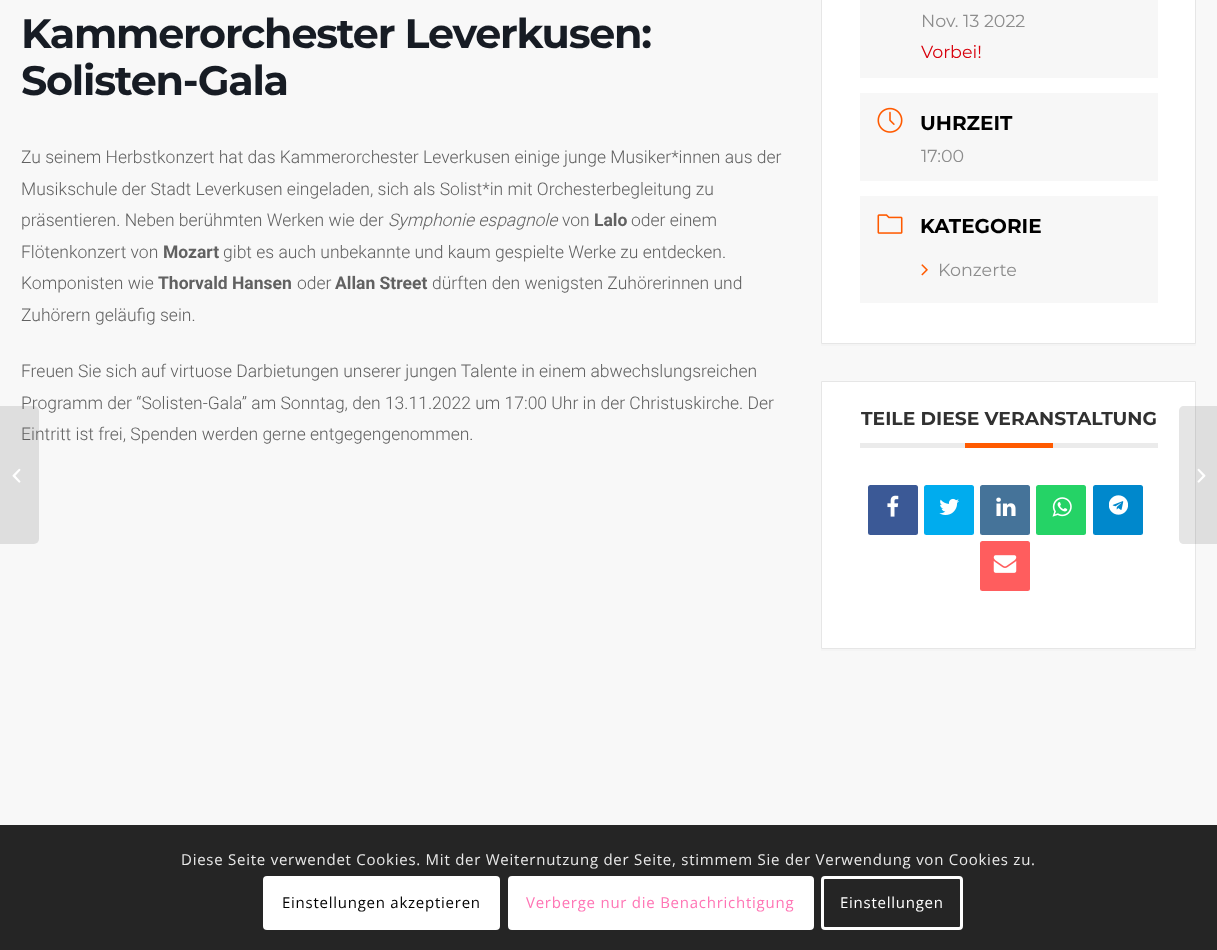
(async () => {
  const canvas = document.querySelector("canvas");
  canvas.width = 1217;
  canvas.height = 950;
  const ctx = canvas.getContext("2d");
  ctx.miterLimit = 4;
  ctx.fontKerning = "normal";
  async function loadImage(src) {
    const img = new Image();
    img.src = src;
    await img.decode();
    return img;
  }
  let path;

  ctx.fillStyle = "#f8f8f8";
  ctx.fillRect(0, 0, 1217, 950);
  ctx.fillStyle = "#f4f4f4";
  path = new Path2D("M821-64V346H1196V344H821Z");
  ctx.fill(path);
  ctx.fillStyle = "#ffffff";
  ctx.beginPath();
  ctx.rect(821.5, -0.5, 374, 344);
  ctx.fill();
  ctx.strokeStyle = "#e6e6e6";
  ctx.stroke();
  ctx.fillStyle = "#f7f7f7";
  ctx.fillRect(860, 0, 298, 78);
  ctx.fillRect(860, 93, 298, 88);
  ctx.drawImage(await loadImage("img/1.png"), 877, 107, 26, 26);
  ctx.fillRect(860, 196, 298, 107);
  ctx.drawImage(await loadImage("img/2.png"), 877, 214, 26, 20);
  ctx.drawImage(await loadImage("img/3.png"), 921, 264, 7, 12);
  ctx.fillStyle = "#f4f4f4";
  path = new Path2D("M821 384V651H1196V649H821Z");
  ctx.fill(path);
  ctx.fillStyle = "#ffffff";
  ctx.beginPath();
  ctx.rect(821.5, 381.5, 374, 267);
  ctx.fill();
  ctx.stroke();
  ctx.fillStyle = "#ebebeb";
  ctx.fillRect(860, 443, 298, 5);
  ctx.fillStyle = "#ff5a00";
  ctx.fillRect(965, 443, 88, 5);
  ctx.fillStyle = "#3b5996";
  ctx.beginPath();
  ctx.roundRect(868, 485, 50, 50, 2.5);
  ctx.fill();
  ctx.drawImage(await loadImage("img/4.png"), 887, 495, 12, 22);
  ctx.fillStyle = "#00acee";
  ctx.beginPath();
  ctx.roundRect(924, 485, 50, 50, 2.5);
  ctx.fill();
  ctx.drawImage(await loadImage("img/5.png"), 939, 498, 20, 17);
  ctx.fillStyle = "#457399";
  ctx.beginPath();
  ctx.roundRect(980, 485, 50, 50, 2.5);
  ctx.fill();
  ctx.drawImage(await loadImage("img/6.png"), 996, 497, 20, 19);
  ctx.fillStyle = "#25d366";
  ctx.beginPath();
  ctx.roundRect(1036, 485, 50, 50, 2.5);
  ctx.fill();
  ctx.drawImage(await loadImage("img/7.png"), 1052, 497, 20, 20);
  ctx.fillStyle = "#0088cc";
  ctx.beginPath();
  ctx.roundRect(1093, 485, 50, 50, 2.5);
  ctx.fill();
  ctx.drawImage(await loadImage("img/8.png"), 1109, 495, 19, 20);
  ctx.fillStyle = "#ff5d5e";
  ctx.beginPath();
  ctx.roundRect(980, 541, 50, 50, 2.5);
  ctx.fill();
  ctx.drawImage(await loadImage("img/9.png"), 993, 555, 24, 18);
  ctx.fillStyle = "rgba(0, 0, 0, 0.1)";
  ctx.beginPath();
  ctx.roundRect(0, 406, 39, 138, [0, 5, 5, 0]);
  ctx.fill();
  ctx.drawImage(await loadImage("img/10.png"), 12, 468, 9, 15);
  path = new Path2D("M1184 406H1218V544H1184C1181 544 1179 542 1179 539V411C1179 408 1181 406 1184 406Z");
  ctx.fill(path);
  ctx.drawImage(await loadImage("img/11.png"), 1197, 468, 9, 15);
  ctx.fillStyle = "#252525";
  ctx.fillRect(0, 825, 1217, 125);
  ctx.fillStyle = "#ffffff";
  ctx.beginPath();
  ctx.roundRect(263, 876, 237, 54, 4);
  ctx.fill();
  ctx.beginPath();
  ctx.roundRect(509.5, 877.5, 303, 51, 2.5);
  ctx.fill();
  ctx.strokeStyle = "#ffffff";
  ctx.lineWidth = 3;
  ctx.stroke();
  ctx.beginPath();
  ctx.roundRect(822.5, 877.5, 139, 51, 2.5);
  ctx.stroke();
  ctx.letterSpacing = "-1.25px";
  ctx.font = "bold 41.25px Montserrat";
  ctx.fillStyle = "#171c24";
  ctx.fillText("Kammerorchester Leverkusen:", 21, 48);
  ctx.fillText("Solisten-Gala", 21, 95);
  ctx.letterSpacing = "0px";
  ctx.font = "300 17.5px Roboto";
  ctx.fillStyle = "#616161";
  for (const [text, x, y] of [
    ["Zu seinem Herbstkonzert hat das Kammerorchester Leverkusen einige junge Musiker*innen aus der", 21, 163],
    ["Musikschule der Stadt Leverkusen eingeladen, sich als Solist*in mit Orchesterbegleitung zu", 21, 195],
    ["präsentieren. Neben berühmten Werken wie der", 21, 226],
  ]) {
    ctx.fillText(text, x, y);
  }
  ctx.font = "italic 300 17.5px Roboto";
  ctx.fillText("Symphonie espagnole", 388, 226);
  ctx.font = "300 17.5px Roboto";
  ctx.fillText("von", 562, 226);
  ctx.font = "bold 17.5px Roboto";
  ctx.fillText("Lalo", 594, 226);
  ctx.font = "300 17.5px Roboto";
  ctx.fillText("oder einem", 631, 226);
  ctx.fillText("Flötenkonzert von", 21, 258);
  ctx.font = "bold 17.5px Roboto";
  ctx.fillText("Mozart", 163, 258);
  ctx.font = "300 17.5px Roboto";
  ctx.fillText("gibt es auch unbekannte und kaum gespielte Werke zu entdecken.", 223, 258);
  ctx.fillText("Komponisten wie", 21, 289);
  ctx.font = "bold 17.5px Roboto";
  ctx.fillText("Thorvald Hansen", 158, 289);
  ctx.font = "300 17.5px Roboto";
  ctx.fillText("oder", 297, 289);
  ctx.font = "bold 17.5px Roboto";
  ctx.fillText("Allan Street", 335, 289);
  ctx.font = "300 17.5px Roboto";
  for (const [text, x, y] of [
    ["dürften den wenigsten Zuhörerinnen und", 432, 289],
    ["Zuhörern geläufig sein.", 21, 321],
    ["Freuen Sie sich auf virtuose Darbietungen unserer jungen Talente in einem abwechslungsreichen", 21, 377],
    ["Programm der “Solisten-Gala” am Sonntag, den 13.11.2022 um 17:00 Uhr in der Christuskirche. Der", 21, 409],
    ["Eintritt ist frei, Spenden werden gerne entgegengenommen.", 21, 440],
  ]) {
    ctx.fillText(text, x, y);
  }
  ctx.font = "17.5px Montserrat";
  ctx.fillStyle = "#8d8d8d";
  ctx.fillText("Nov. 13 2022", 921, 27);
  ctx.fillStyle = "#d8000c";
  ctx.fillText("Vorbei!", 921, 58);
  ctx.font = "bold 20px Montserrat";
  ctx.fillStyle = "#000000";
  ctx.fillText("UHRZEIT", 920, 130);
  ctx.font = "17.5px Montserrat";
  ctx.fillStyle = "#8d8d8d";
  ctx.fillText("17:00", 921, 162);
  ctx.font = "bold 20px Montserrat";
  ctx.fillStyle = "#000000";
  ctx.fillText("KATEGORIE", 920, 233);
  ctx.font = "17.5px Montserrat";
  ctx.fillStyle = "#8d8d8d";
  ctx.fillText("Konzerte", 938, 276);
  ctx.font = "bold 18.75px Montserrat";
  ctx.fillStyle = "#313131";
  ctx.fillText("TEILE DIESE VERANSTALTUNG", 861, 425);
  ctx.letterSpacing = "0.75px";
  ctx.font = "15px Open Sans";
  ctx.fillStyle = "#e9e9e9";
  ctx.fillText("Diese Seite verwendet Cookies. Mit der Weiternutzung der Seite, stimmem Sie der Verwendung von Cookies zu.", 181, 865);
  ctx.fillStyle = "#000000";
  ctx.fillText("Einstellungen akzeptieren", 282, 908);
  ctx.fillStyle = "#ff75b5";
  ctx.fillText("Verberge nur die Benachrichtigung", 526, 908);
  ctx.fillStyle = "#ffffff";
  ctx.fillText("Einstellungen", 840, 908);
})();
